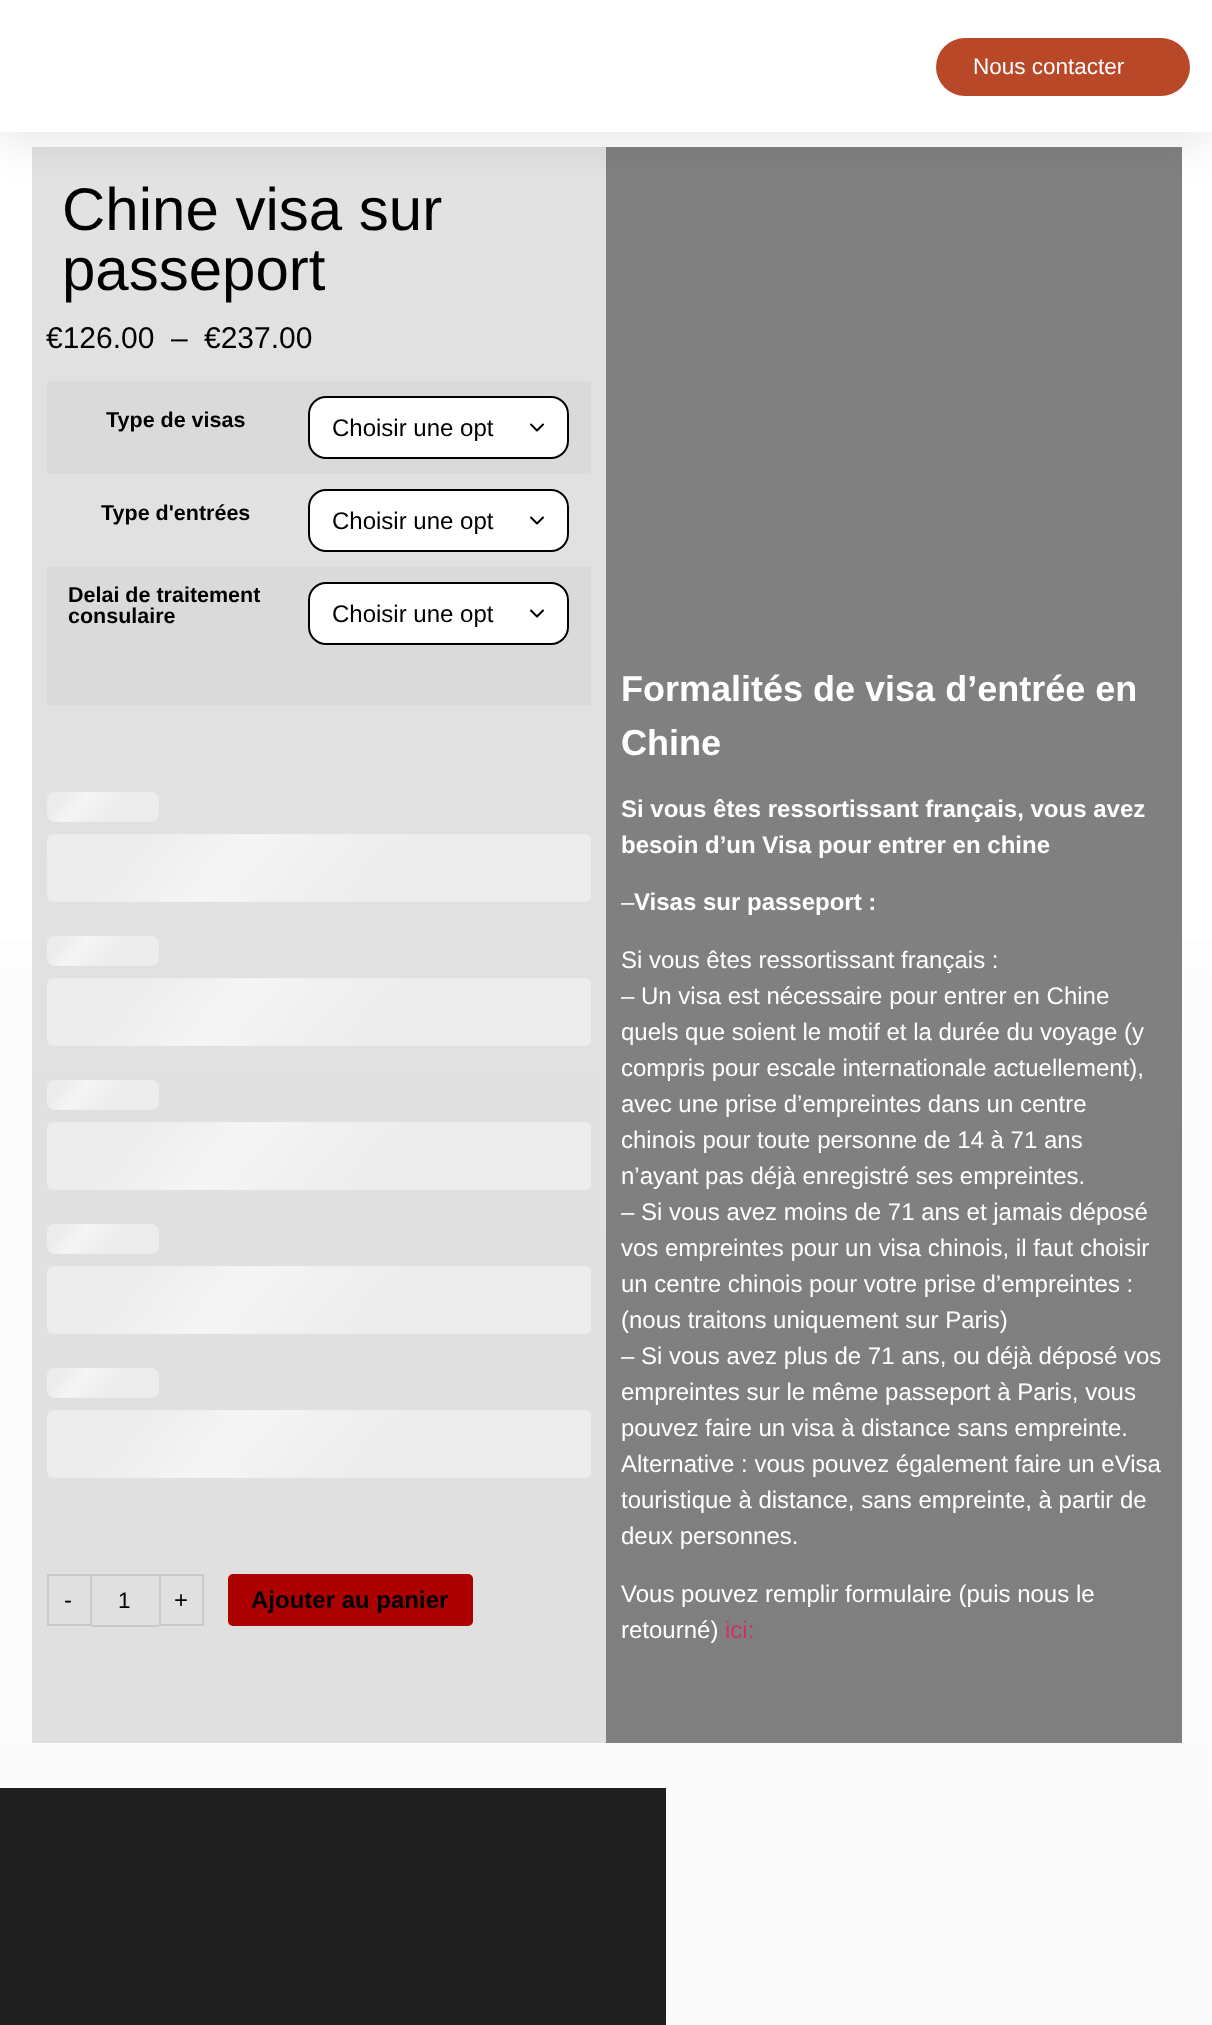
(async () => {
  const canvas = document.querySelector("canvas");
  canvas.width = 1212;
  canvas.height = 2025;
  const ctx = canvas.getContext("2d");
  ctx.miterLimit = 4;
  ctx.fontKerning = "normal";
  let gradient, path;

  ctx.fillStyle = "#ffffff";
  ctx.fillRect(0, 0, 1212, 2025);
  gradient = ctx.createLinearGradient(606, 0, 606, 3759);
  gradient.addColorStop(0, "#ffffff");
  gradient.addColorStop(1, "#f5f6f8");
  ctx.fillStyle = gradient;
  ctx.fillRect(0, 940, 1212, 1085);
  gradient = ctx.createLinearGradient(606, 0, 606, 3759);
  gradient.addColorStop(0, "#818181");
  gradient.addColorStop(1, "#7c7d7e");
  ctx.fillStyle = gradient;
  ctx.fillRect(606, 147, 576, 1596);
  gradient = ctx.createLinearGradient(606, 0, 606, 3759);
  gradient.addColorStop(0, "#e2e2e2");
  gradient.addColorStop(1, "#ddddde");
  ctx.fillStyle = gradient;
  ctx.fillRect(32, 147, 574, 1596);
  ctx.fillStyle = "rgba(0, 0, 0, 0.1)";
  ctx.filter = "blur(22.5px)";
  ctx.beginPath();
  ctx.rect(0, 8, 1212, 132);
  ctx.fill();
  ctx.filter = "none";
  ctx.fillStyle = "#ffffff";
  ctx.fillRect(0, 0, 1212, 132);
  ctx.fillStyle = "#b94828";
  ctx.beginPath();
  ctx.roundRect(936, 38, 254, 58, 29);
  ctx.fill();
  ctx.fillStyle = "#dadada";
  ctx.fillRect(47, 381, 544, 93);
  ctx.fillStyle = "#ffffff";
  ctx.beginPath();
  ctx.roundRect(308, 396, 261, 63, 18);
  ctx.fill();
  path = new Path2D("M531 424.5L537 430.5L543 424.5");
  ctx.strokeStyle = "#000000";
  ctx.lineWidth = 2;
  ctx.lineCap = "round";
  ctx.lineJoin = "round";
  ctx.stroke(path);
  ctx.beginPath();
  ctx.roundRect(309, 397, 259, 61, 17);
  ctx.lineJoin = "miter";
  ctx.stroke();
  ctx.beginPath();
  ctx.roundRect(308, 489, 261, 63, 18);
  ctx.fill();
  path = new Path2D("M531 517.5L537 523.5L543 517.5");
  ctx.lineJoin = "round";
  ctx.stroke(path);
  ctx.beginPath();
  ctx.roundRect(309, 490, 259, 61, 17);
  ctx.lineJoin = "miter";
  ctx.stroke();
  ctx.fillStyle = "#dadada";
  ctx.fillRect(47, 567, 544, 138);
  ctx.fillStyle = "#ffffff";
  ctx.beginPath();
  ctx.roundRect(308, 582, 261, 63, 18);
  ctx.fill();
  path = new Path2D("M531 610.5L537 616.5L543 610.5");
  ctx.lineJoin = "round";
  ctx.stroke(path);
  ctx.beginPath();
  ctx.roundRect(309, 583, 259, 61, 17);
  ctx.lineJoin = "miter";
  ctx.stroke();
  gradient = ctx.createLinearGradient(86, 745, 232, 869);
  gradient.addColorStop(0.08, "#ececec");
  gradient.addColorStop(0.18, "#f5f5f5");
  gradient.addColorStop(0.33, "#ececec");
  ctx.fillStyle = gradient;
  ctx.beginPath();
  ctx.roundRect(47, 792, 112, 30, 8);
  ctx.fill();
  gradient = ctx.createLinearGradient(255, 586, 927, 1150);
  gradient.addColorStop(0.08, "#ececec");
  gradient.addColorStop(0.18, "#f5f5f5");
  gradient.addColorStop(0.33, "#ececec");
  ctx.fillStyle = gradient;
  ctx.beginPath();
  ctx.roundRect(47, 834, 544, 68, 6);
  ctx.fill();
  gradient = ctx.createLinearGradient(86, 889, 232, 1013);
  gradient.addColorStop(0.08, "#ececec");
  gradient.addColorStop(0.18, "#f5f5f5");
  gradient.addColorStop(0.33, "#ececec");
  ctx.fillStyle = gradient;
  ctx.beginPath();
  ctx.roundRect(47, 936, 112, 30, 8);
  ctx.fill();
  gradient = ctx.createLinearGradient(255, 730, 927, 1294);
  gradient.addColorStop(0.08, "#ececec");
  gradient.addColorStop(0.18, "#f5f5f5");
  gradient.addColorStop(0.33, "#ececec");
  ctx.fillStyle = gradient;
  ctx.beginPath();
  ctx.roundRect(47, 978, 544, 68, 6);
  ctx.fill();
  gradient = ctx.createLinearGradient(86, 1033, 232, 1157);
  gradient.addColorStop(0.08, "#ececec");
  gradient.addColorStop(0.18, "#f5f5f5");
  gradient.addColorStop(0.33, "#ececec");
  ctx.fillStyle = gradient;
  ctx.beginPath();
  ctx.roundRect(47, 1080, 112, 30, 8);
  ctx.fill();
  gradient = ctx.createLinearGradient(255, 874, 927, 1438);
  gradient.addColorStop(0.08, "#ececec");
  gradient.addColorStop(0.18, "#f5f5f5");
  gradient.addColorStop(0.33, "#ececec");
  ctx.fillStyle = gradient;
  ctx.beginPath();
  ctx.roundRect(47, 1122, 544, 68, 6);
  ctx.fill();
  gradient = ctx.createLinearGradient(86, 1177, 232, 1301);
  gradient.addColorStop(0.08, "#ececec");
  gradient.addColorStop(0.18, "#f5f5f5");
  gradient.addColorStop(0.33, "#ececec");
  ctx.fillStyle = gradient;
  ctx.beginPath();
  ctx.roundRect(47, 1224, 112, 30, 8);
  ctx.fill();
  gradient = ctx.createLinearGradient(255, 1018, 927, 1582);
  gradient.addColorStop(0.08, "#ececec");
  gradient.addColorStop(0.18, "#f5f5f5");
  gradient.addColorStop(0.33, "#ececec");
  ctx.fillStyle = gradient;
  ctx.beginPath();
  ctx.roundRect(47, 1266, 544, 68, 6);
  ctx.fill();
  gradient = ctx.createLinearGradient(86, 1321, 232, 1445);
  gradient.addColorStop(0.08, "#ececec");
  gradient.addColorStop(0.18, "#f5f5f5");
  gradient.addColorStop(0.33, "#ececec");
  ctx.fillStyle = gradient;
  ctx.beginPath();
  ctx.roundRect(47, 1368, 112, 30, 8);
  ctx.fill();
  gradient = ctx.createLinearGradient(255, 1162, 927, 1726);
  gradient.addColorStop(0.08, "#ececec");
  gradient.addColorStop(0.18, "#f5f5f5");
  gradient.addColorStop(0.33, "#ececec");
  ctx.fillStyle = gradient;
  ctx.beginPath();
  ctx.roundRect(47, 1410, 544, 68, 6);
  ctx.fill();
  ctx.strokeStyle = "#cac9c9";
  ctx.strokeRect(48, 1575, 43, 50);
  ctx.fillStyle = "#cac9c9";
  ctx.fillRect(92, 1574, 67, 2);
  ctx.fillRect(92, 1625, 67, 2);
  ctx.strokeRect(160, 1575, 43, 50);
  ctx.fillStyle = "#ad0000";
  ctx.beginPath();
  ctx.roundRect(228, 1574, 245, 52, 5);
  ctx.fill();
  ctx.fillStyle = "#1e1e1e";
  ctx.fillRect(0, 1788, 666, 237);
  ctx.font = "22.5px Liberation Sans";
  ctx.fillStyle = "#ffffff";
  ctx.fillText("Nous contacter", 973, 74);
  ctx.font = "60px Liberation Sans";
  ctx.fillStyle = "#000000";
  ctx.fillText("Chine visa sur", 62, 230);
  ctx.fillText("passeport", 62, 290);
  ctx.font = "30px Liberation Sans";
  for (const [text, x, y] of [
    ["€126.00", 46, 348],
    ["–", 171, 348],
    ["€237.00", 204, 348],
  ]) {
    ctx.fillText(text, x, y);
  }
  ctx.font = "bold 21.5px Liberation Sans";
  ctx.fillText("Type de visas", 106, 427);
  ctx.font = "24px Liberation Sans";
  ctx.fillText("Choisir une opt", 332, 436);
  ctx.font = "bold 21.5px Liberation Sans";
  ctx.fillText("Type d'entrées", 101, 520);
  ctx.font = "24px Liberation Sans";
  ctx.fillText("Choisir une opt", 332, 529);
  ctx.font = "bold 21.5px Liberation Sans";
  ctx.fillText("Delai de traitement", 68, 602);
  ctx.fillText("consulaire", 68, 623);
  ctx.font = "24px Liberation Sans";
  ctx.fillText("Choisir une opt", 332, 622);
  ctx.fillText("-", 64, 1608);
  ctx.font = "22.5px Liberation Sans";
  ctx.fillText("1", 118, 1608);
  ctx.font = "24px Liberation Sans";
  ctx.fillText("+", 174, 1608);
  ctx.font = "bold 24px Liberation Sans";
  ctx.fillText("Ajouter au panier", 251, 1608);
  ctx.font = "bold 36px Liberation Sans";
  ctx.fillStyle = "#ffffff";
  ctx.fillText("Formalités de visa d’entrée en", 621, 701);
  ctx.fillText("Chine", 621, 755);
  ctx.font = "bold 24px Liberation Sans";
  ctx.fillText("Si vous êtes ressortissant français, vous avez", 621, 817);
  ctx.fillText("besoin d’un Visa pour entrer en chine", 621, 853);
  ctx.font = "24px Liberation Sans";
  ctx.fillText("–", 621, 910);
  ctx.font = "bold 24px Liberation Sans";
  ctx.fillText("Visas sur passeport :", 634, 910);
  ctx.font = "24px Liberation Sans";
  for (const [text, x, y] of [
    ["Si vous êtes ressortissant français :", 621, 968],
    ["– Un visa est nécessaire pour entrer en Chine", 621, 1004],
    ["quels que soient le motif et la durée du voyage (y", 621, 1040],
    ["compris pour escale internationale actuellement),", 621, 1076],
    ["avec une prise d’empreintes dans un centre", 621, 1112],
    ["chinois pour toute personne de 14 à 71 ans", 621, 1148],
    ["n’ayant pas déjà enregistré ses empreintes.", 621, 1184],
    ["– Si vous avez moins de 71 ans et jamais déposé", 621, 1220],
    ["vos empreintes pour un visa chinois, il faut choisir", 621, 1256],
    ["un centre chinois pour votre prise d’empreintes :", 621, 1292],
    ["(nous traitons uniquement sur Paris)", 621, 1328],
    ["– Si vous avez plus de 71 ans, ou déjà déposé vos", 621, 1364],
    ["empreintes sur le même passeport à Paris, vous", 621, 1400],
    ["pouvez faire un visa à distance sans empreinte.", 621, 1436],
    ["Alternative : vous pouvez également faire un eVisa", 621, 1472],
    ["touristique à distance, sans empreinte, à partir de", 621, 1508],
    ["deux personnes.", 621, 1544],
    ["Vous pouvez remplir formulaire (puis nous le", 621, 1602],
    ["retourné)", 621, 1638],
  ]) {
    ctx.fillText(text, x, y);
  }
  ctx.fillStyle = "#cc3366";
  ctx.fillText("ici:", 725, 1638);
})();
